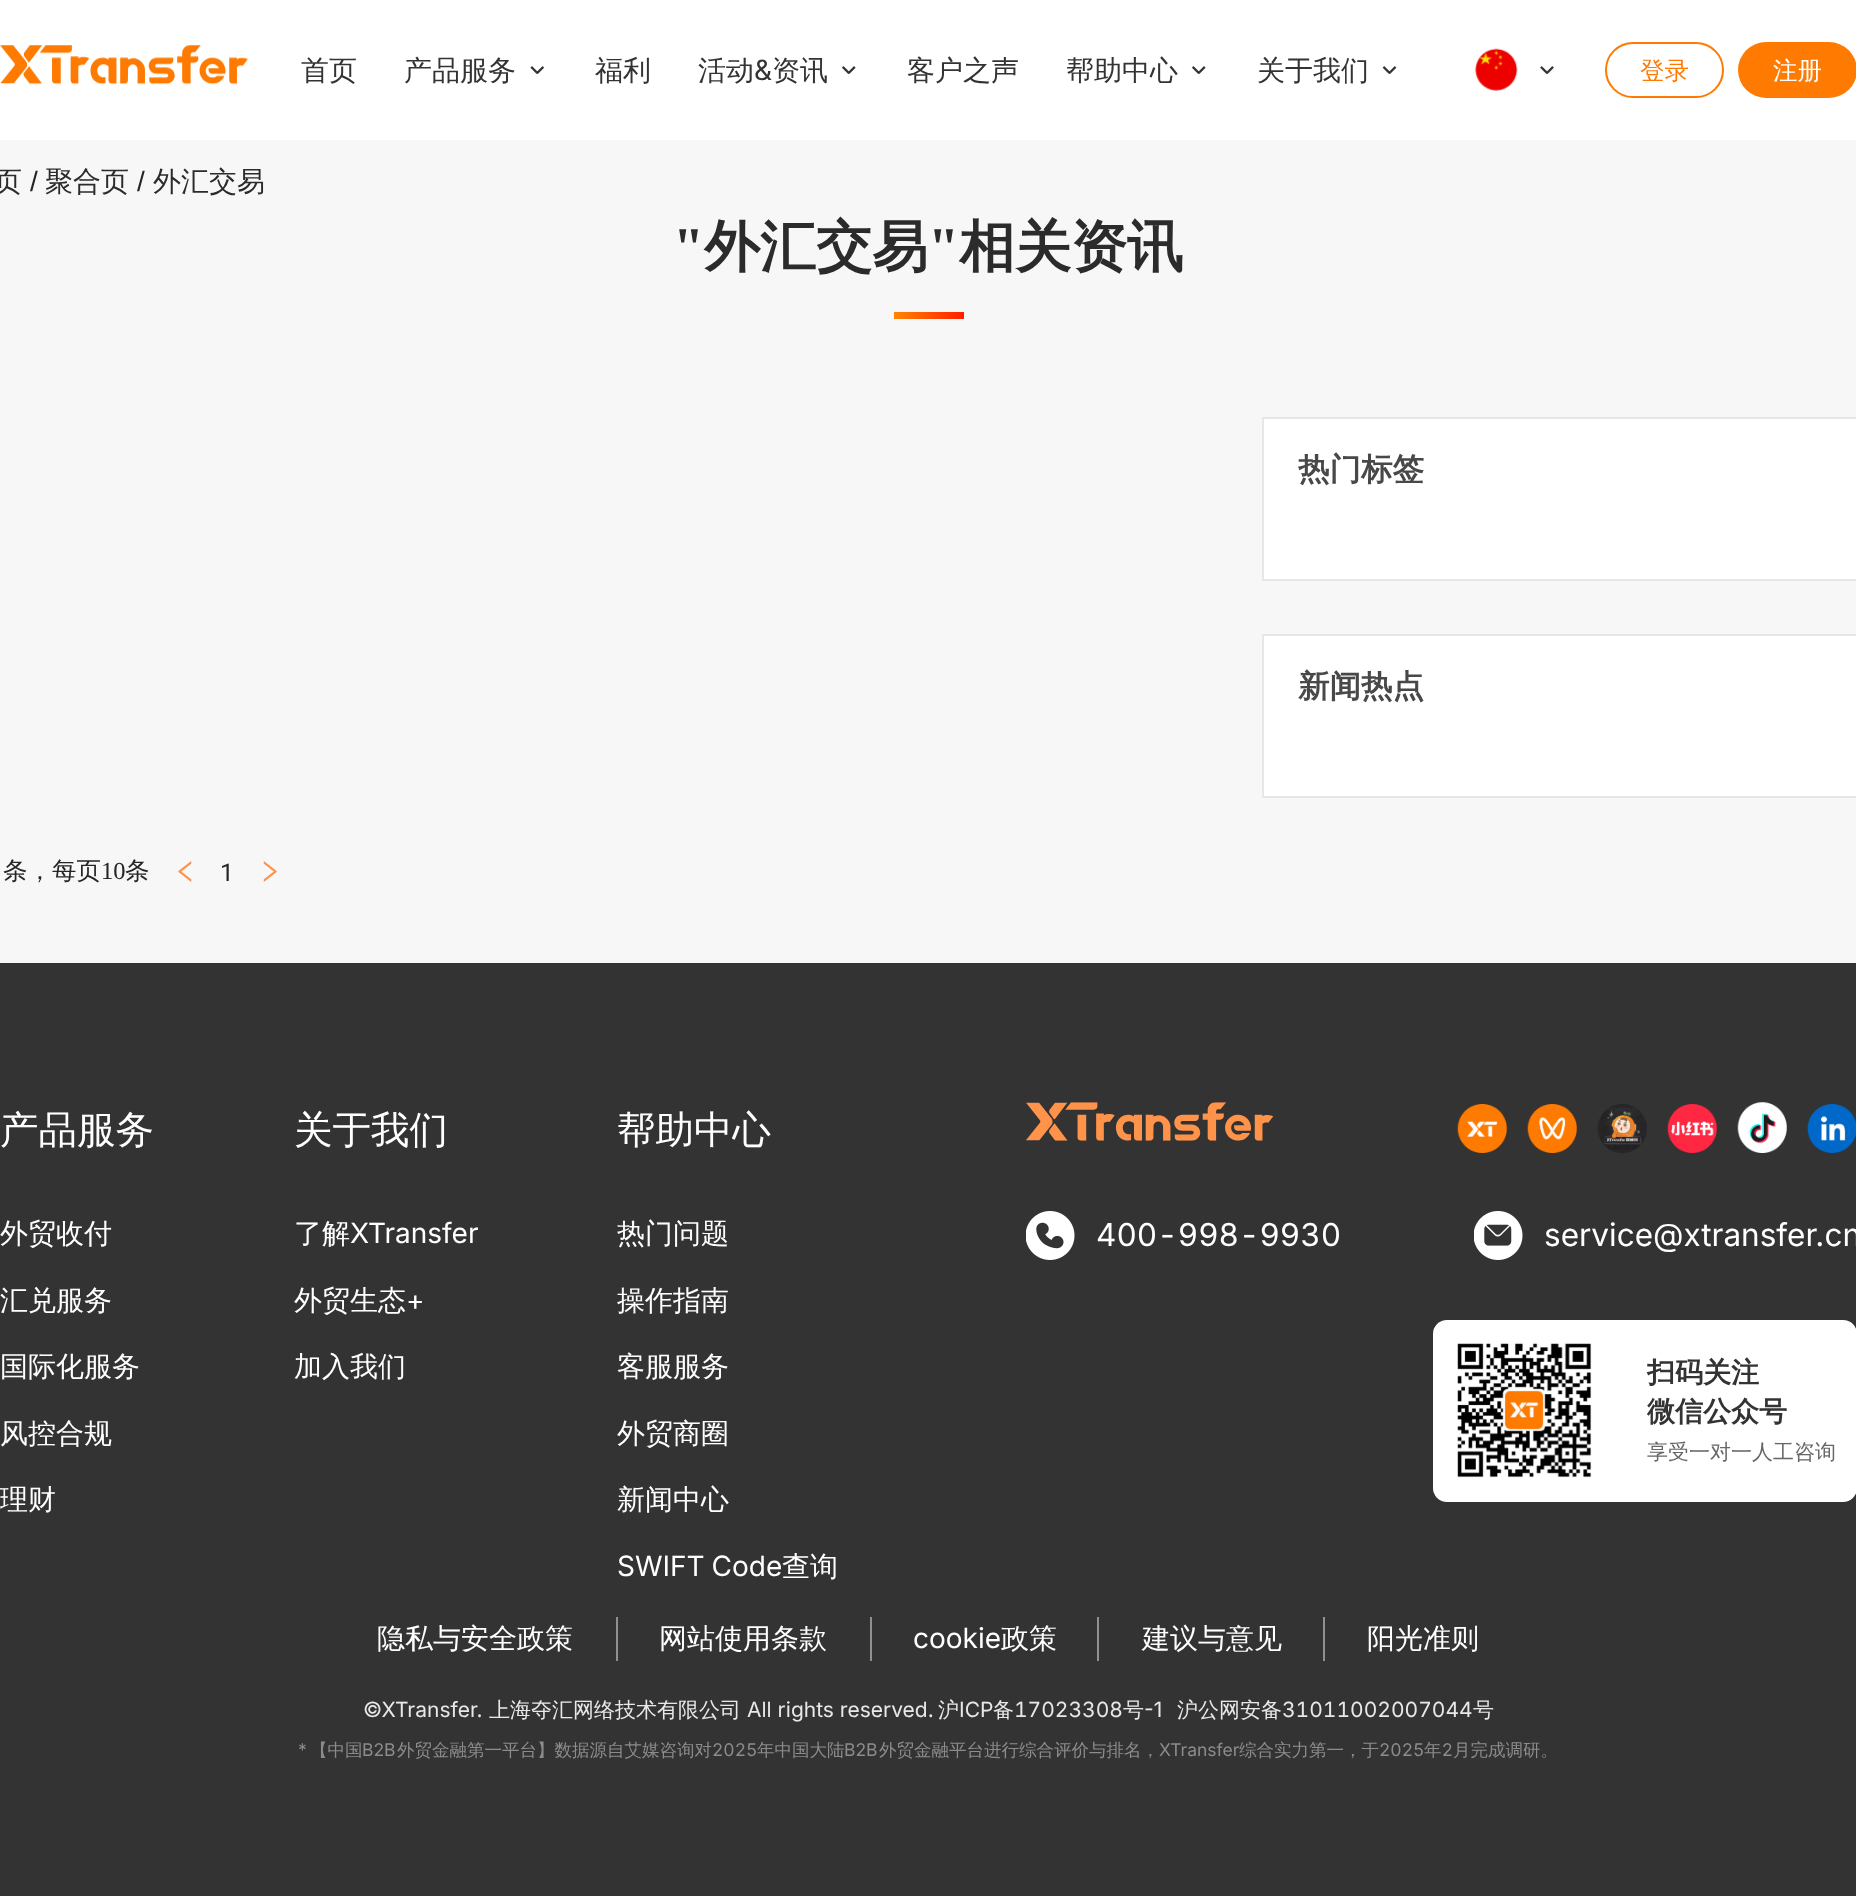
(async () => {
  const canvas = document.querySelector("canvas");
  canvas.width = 1856;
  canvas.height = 1896;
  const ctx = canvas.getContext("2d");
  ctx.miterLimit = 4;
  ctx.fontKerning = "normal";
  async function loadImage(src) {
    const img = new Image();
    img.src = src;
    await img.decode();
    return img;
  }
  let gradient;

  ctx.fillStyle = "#f7f7f7";
  ctx.fillRect(0, 0, 1856, 1896);
  ctx.fillStyle = "#ffffff";
  ctx.fillRect(0, 0, 1856, 140);
  ctx.drawImage(await loadImage("img/1.png"), 0, 45, 248, 40);
  ctx.drawImage(await loadImage("img/2.png"), 530, 66, 14, 8);
  ctx.drawImage(await loadImage("img/3.png"), 842, 66, 14, 8);
  ctx.drawImage(await loadImage("img/3.png"), 1192, 66, 14, 8);
  ctx.drawImage(await loadImage("img/4.png"), 1382, 66, 15, 8);
  ctx.drawImage(await loadImage("img/5.png"), 1475, 48, 43, 43);
  ctx.drawImage(await loadImage("img/6.png"), 1540, 66, 14, 8);
  ctx.beginPath();
  ctx.roundRect(1606, 43, 117, 54, 27);
  ctx.strokeStyle = "#ff7a00";
  ctx.lineWidth = 2;
  ctx.stroke();
  ctx.fillStyle = "#ff7a00";
  ctx.beginPath();
  ctx.roundRect(1738, 42, 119, 56, 28);
  ctx.fill();
  gradient = ctx.createLinearGradient(894, 315, 964, 315);
  gradient.addColorStop(0, "#ff8600");
  gradient.addColorStop(1, "#ff1e00");
  ctx.fillStyle = gradient;
  ctx.fillRect(894, 312, 70, 7);
  ctx.fillStyle = "#ffffff";
  ctx.beginPath();
  ctx.rect(1263, 418, 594, 162);
  ctx.fill();
  ctx.strokeStyle = "#e6e7e9";
  ctx.stroke();
  ctx.beginPath();
  ctx.rect(1263, 635, 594, 162);
  ctx.fill();
  ctx.stroke();
  ctx.drawImage(await loadImage("img/7.png"), 178, 861, 14, 21);
  ctx.drawImage(await loadImage("img/8.png"), 263, 861, 14, 21);
  ctx.fillStyle = "#333333";
  ctx.fillRect(0, 963, 1856, 933);
  ctx.drawImage(await loadImage("img/9.png"), 1026, 1102, 248, 39);
  ctx.drawImage(await loadImage("img/10.png"), 1457, 1104, 50, 49);
  ctx.drawImage(await loadImage("img/11.png"), 1527, 1104, 50, 49);
  ctx.drawImage(await loadImage("img/12.png"), 1597, 1104, 50, 49);
  ctx.drawImage(await loadImage("img/13.png"), 1667, 1104, 50, 49);
  ctx.drawImage(await loadImage("img/14.png"), 1737, 1102, 50, 51);
  ctx.drawImage(await loadImage("img/15.png"), 1807, 1104, 49, 49);
  ctx.drawImage(await loadImage("img/16.png"), 1026, 1211, 49, 49);
  ctx.drawImage(await loadImage("img/17.png"), 1474, 1211, 49, 49);
  ctx.fillStyle = "#ffffff";
  ctx.beginPath();
  ctx.roundRect(1433, 1320, 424, 182, 14);
  ctx.fill();
  ctx.drawImage(await loadImage("img/18.png"), 1457, 1343, 135, 135);
  for (const [x, y, w, h, color] of [
    [616, 1617, 2, 44, "#909090"],
    [870, 1617, 2, 44, "#909090"],
    [1097, 1617, 2, 44, "#909090"],
    [1323, 1617, 2, 44, "#909090"],
  ]) {
    ctx.fillStyle = color;
    ctx.fillRect(x, y, w, h);
  }
  ctx.font = "500 28px WenQuanYi Zen Hei";
  ctx.fillStyle = "#333333";
  for (const [text, x, y] of [
    ["首页", 301, 80],
    ["产品服务", 404, 80],
    ["福利", 595, 80],
    ["活动", 698, 80],
  ]) {
    ctx.fillText(text, x, y);
  }
  ctx.font = "28px Inter";
  ctx.fillText("&", 754, 80);
  ctx.font = "500 28px WenQuanYi Zen Hei";
  for (const [text, x, y] of [
    ["资讯", 772, 80],
    ["客户之声", 907, 80],
    ["帮助中心", 1066, 80],
    ["关于我们", 1257, 80],
  ]) {
    ctx.fillText(text, x, y);
  }
  ctx.font = "500 24.5px WenQuanYi Zen Hei";
  ctx.fillStyle = "#ff7a00";
  ctx.fillText("登录", 1640, 79);
  ctx.fillStyle = "#ffffff";
  ctx.fillText("注册", 1773, 79);
  ctx.font = "500 28px WenQuanYi Zen Hei";
  ctx.fillStyle = "#2b2b2b";
  ctx.fillText("页", -6, 191);
  ctx.font = "28px Liberation Sans";
  ctx.fillStyle = "#252525";
  ctx.fillText("/", 30, 191);
  ctx.font = "500 28px WenQuanYi Zen Hei";
  ctx.fillStyle = "#2b2b2b";
  ctx.fillText("聚合页", 45, 191);
  ctx.font = "28px Liberation Sans";
  ctx.fillStyle = "#252525";
  ctx.fillText("/", 137, 191);
  ctx.font = "500 28px WenQuanYi Zen Hei";
  ctx.fillStyle = "#2b2b2b";
  ctx.fillText("外汇交易", 153, 191);
  ctx.font = "bold 56px Liberation Serif";
  ctx.fillText("\"", 673, 266);
  ctx.font = "bold 56px WenQuanYi Zen Hei";
  ctx.fillText("外汇交易", 704, 266);
  ctx.font = "bold 56px Liberation Serif";
  ctx.fillText("\"", 928, 266);
  ctx.font = "bold 56px WenQuanYi Zen Hei";
  ctx.fillText("相关资讯", 959, 266);
  ctx.font = "bold 31.5px WenQuanYi Zen Hei";
  ctx.fillStyle = "#484848";
  ctx.fillText("热门标签", 1298, 480);
  ctx.fillText("新闻热点", 1298, 697);
  ctx.font = "500 24.5px WenQuanYi Zen Hei";
  ctx.fillStyle = "#252525";
  ctx.fillText("条，每页", 3, 879);
  ctx.font = "24.5px Liberation Serif";
  ctx.fillText("10", 101, 879);
  ctx.font = "500 24.5px WenQuanYi Zen Hei";
  ctx.fillText("条", 125, 879);
  ctx.font = "24.5px Roboto";
  ctx.fillText("1", 220, 881);
  ctx.font = "500 38.5px WenQuanYi Zen Hei";
  ctx.fillStyle = "#ffffff";
  ctx.fillText("产品服务", 0, 1143);
  ctx.font = "500 28px WenQuanYi Zen Hei";
  for (const [text, x, y] of [
    ["外贸收付", 0, 1243],
    ["汇兑服务", 0, 1310],
    ["国际化服务", 0, 1376],
    ["风控合规", 0, 1443],
    ["理财", 0, 1509],
  ]) {
    ctx.fillText(text, x, y);
  }
  ctx.font = "500 38.5px WenQuanYi Zen Hei";
  ctx.fillText("关于我们", 294, 1143);
  ctx.font = "500 28px WenQuanYi Zen Hei";
  ctx.fillText("了解", 294, 1243);
  ctx.font = "28px Inter";
  ctx.fillText("XTransfer", 350, 1243);
  ctx.font = "500 28px WenQuanYi Zen Hei";
  ctx.fillText("外贸生态", 294, 1310);
  ctx.font = "28px Inter";
  ctx.fillText("+", 406, 1310);
  ctx.font = "500 28px WenQuanYi Zen Hei";
  ctx.fillText("加入我们", 294, 1376);
  ctx.font = "500 38.5px WenQuanYi Zen Hei";
  ctx.fillText("帮助中心", 617, 1143);
  ctx.font = "500 28px WenQuanYi Zen Hei";
  for (const [text, x, y] of [
    ["热门问题", 617, 1243],
    ["操作指南", 617, 1310],
    ["客服服务", 617, 1376],
    ["外贸商圈", 617, 1443],
    ["新闻中心", 617, 1509],
  ]) {
    ctx.fillText(text, x, y);
  }
  ctx.wordSpacing = "-1px";
  ctx.font = "28px Inter";
  ctx.fillText("SWIFT Code", 617, 1576);
  ctx.wordSpacing = "0px";
  ctx.font = "500 28px WenQuanYi Zen Hei";
  ctx.fillText("查询", 782, 1576);
  ctx.font = "31.5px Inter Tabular";
  ctx.fillText("400-998-9930", 1096, 1246);
  ctx.font = "31.5px Inter";
  ctx.fillText("service@xtransfer.cn", 1544, 1246);
  ctx.font = "bold 28px WenQuanYi Zen Hei";
  ctx.fillStyle = "#333333";
  ctx.fillText("扫码关注", 1647, 1382);
  ctx.fillText("微信公众号", 1647, 1421);
  ctx.font = "500 21px WenQuanYi Zen Hei";
  ctx.fillStyle = "#666666";
  ctx.fillText("享受一对一人工咨询", 1647, 1459);
  ctx.font = "500 28px WenQuanYi Zen Hei";
  ctx.fillStyle = "#ffffff";
  ctx.fillText("隐私与安全政策", 377, 1648);
  ctx.fillText("网站使用条款", 659, 1648);
  ctx.font = "28px Inter";
  ctx.fillText("cookie", 913, 1648);
  ctx.font = "500 28px WenQuanYi Zen Hei";
  for (const [text, x, y] of [
    ["政策", 1001, 1648],
    ["建议与意见", 1142, 1648],
    ["阳光准则", 1367, 1648],
  ]) {
    ctx.fillText(text, x, y);
  }
  ctx.font = "21px Inter";
  ctx.fillStyle = "#e8e8e8";
  ctx.fillText("©XTransfer.", 363, 1717);
  ctx.font = "500 21px WenQuanYi Zen Hei";
  ctx.fillText("上海夺汇网络技术有限公司", 489, 1717);
  ctx.font = "21px Inter";
  ctx.fillText("All rights reserved.", 747, 1717);
  ctx.font = "500 21px WenQuanYi Zen Hei";
  ctx.fillText("沪", 938, 1717);
  ctx.font = "21px Inter";
  ctx.fillText("ICP", 959, 1717);
  ctx.font = "500 21px WenQuanYi Zen Hei";
  ctx.fillText("备", 993, 1717);
  ctx.font = "21px Inter Tabular";
  ctx.fillText("17023308", 1014, 1717);
  ctx.font = "500 21px WenQuanYi Zen Hei";
  ctx.fillText("号", 1123, 1717);
  ctx.font = "21px Inter";
  ctx.fillText("-1", 1144, 1717);
  ctx.font = "500 21px WenQuanYi Zen Hei";
  ctx.fillText("沪公网安备", 1177, 1717);
  ctx.font = "21px Inter Tabular";
  ctx.fillText("31011002007044", 1282, 1717);
  ctx.font = "500 21px WenQuanYi Zen Hei";
  ctx.fillText("号", 1473, 1717);
  ctx.font = "17.5px Inter";
  ctx.fillStyle = "#8c8c8c";
  ctx.fillText("*", 298, 1756);
  ctx.font = "500 17.5px WenQuanYi Zen Hei";
  ctx.fillText("【中国", 310, 1756);
  ctx.font = "17.5px Inter";
  ctx.fillText("B2B", 362, 1756);
  ctx.font = "500 17.5px WenQuanYi Zen Hei";
  ctx.fillText("外贸金融第一平台】数据源自艾媒咨询对", 397, 1756);
  ctx.font = "17.5px Inter Tabular";
  ctx.fillText("2025", 712, 1756);
  ctx.font = "500 17.5px WenQuanYi Zen Hei";
  ctx.fillText("年中国大陆", 757, 1756);
  ctx.font = "17.5px Inter";
  ctx.fillText("B2B", 844, 1756);
  ctx.font = "500 17.5px WenQuanYi Zen Hei";
  ctx.fillText("外贸金融平台进行综合评价与排名，", 879, 1756);
  ctx.font = "17.5px Inter";
  ctx.fillText("XTransfer", 1159, 1756);
  ctx.font = "500 17.5px WenQuanYi Zen Hei";
  ctx.fillText("综合实力第一，于", 1239, 1756);
  ctx.font = "17.5px Inter Tabular";
  ctx.fillText("2025", 1379, 1756);
  ctx.font = "500 17.5px WenQuanYi Zen Hei";
  ctx.fillText("年", 1424, 1756);
  ctx.font = "17.5px Inter";
  ctx.fillText("2", 1442, 1756);
  ctx.font = "500 17.5px WenQuanYi Zen Hei";
  ctx.fillText("月完成调研。", 1453, 1756);
})();
